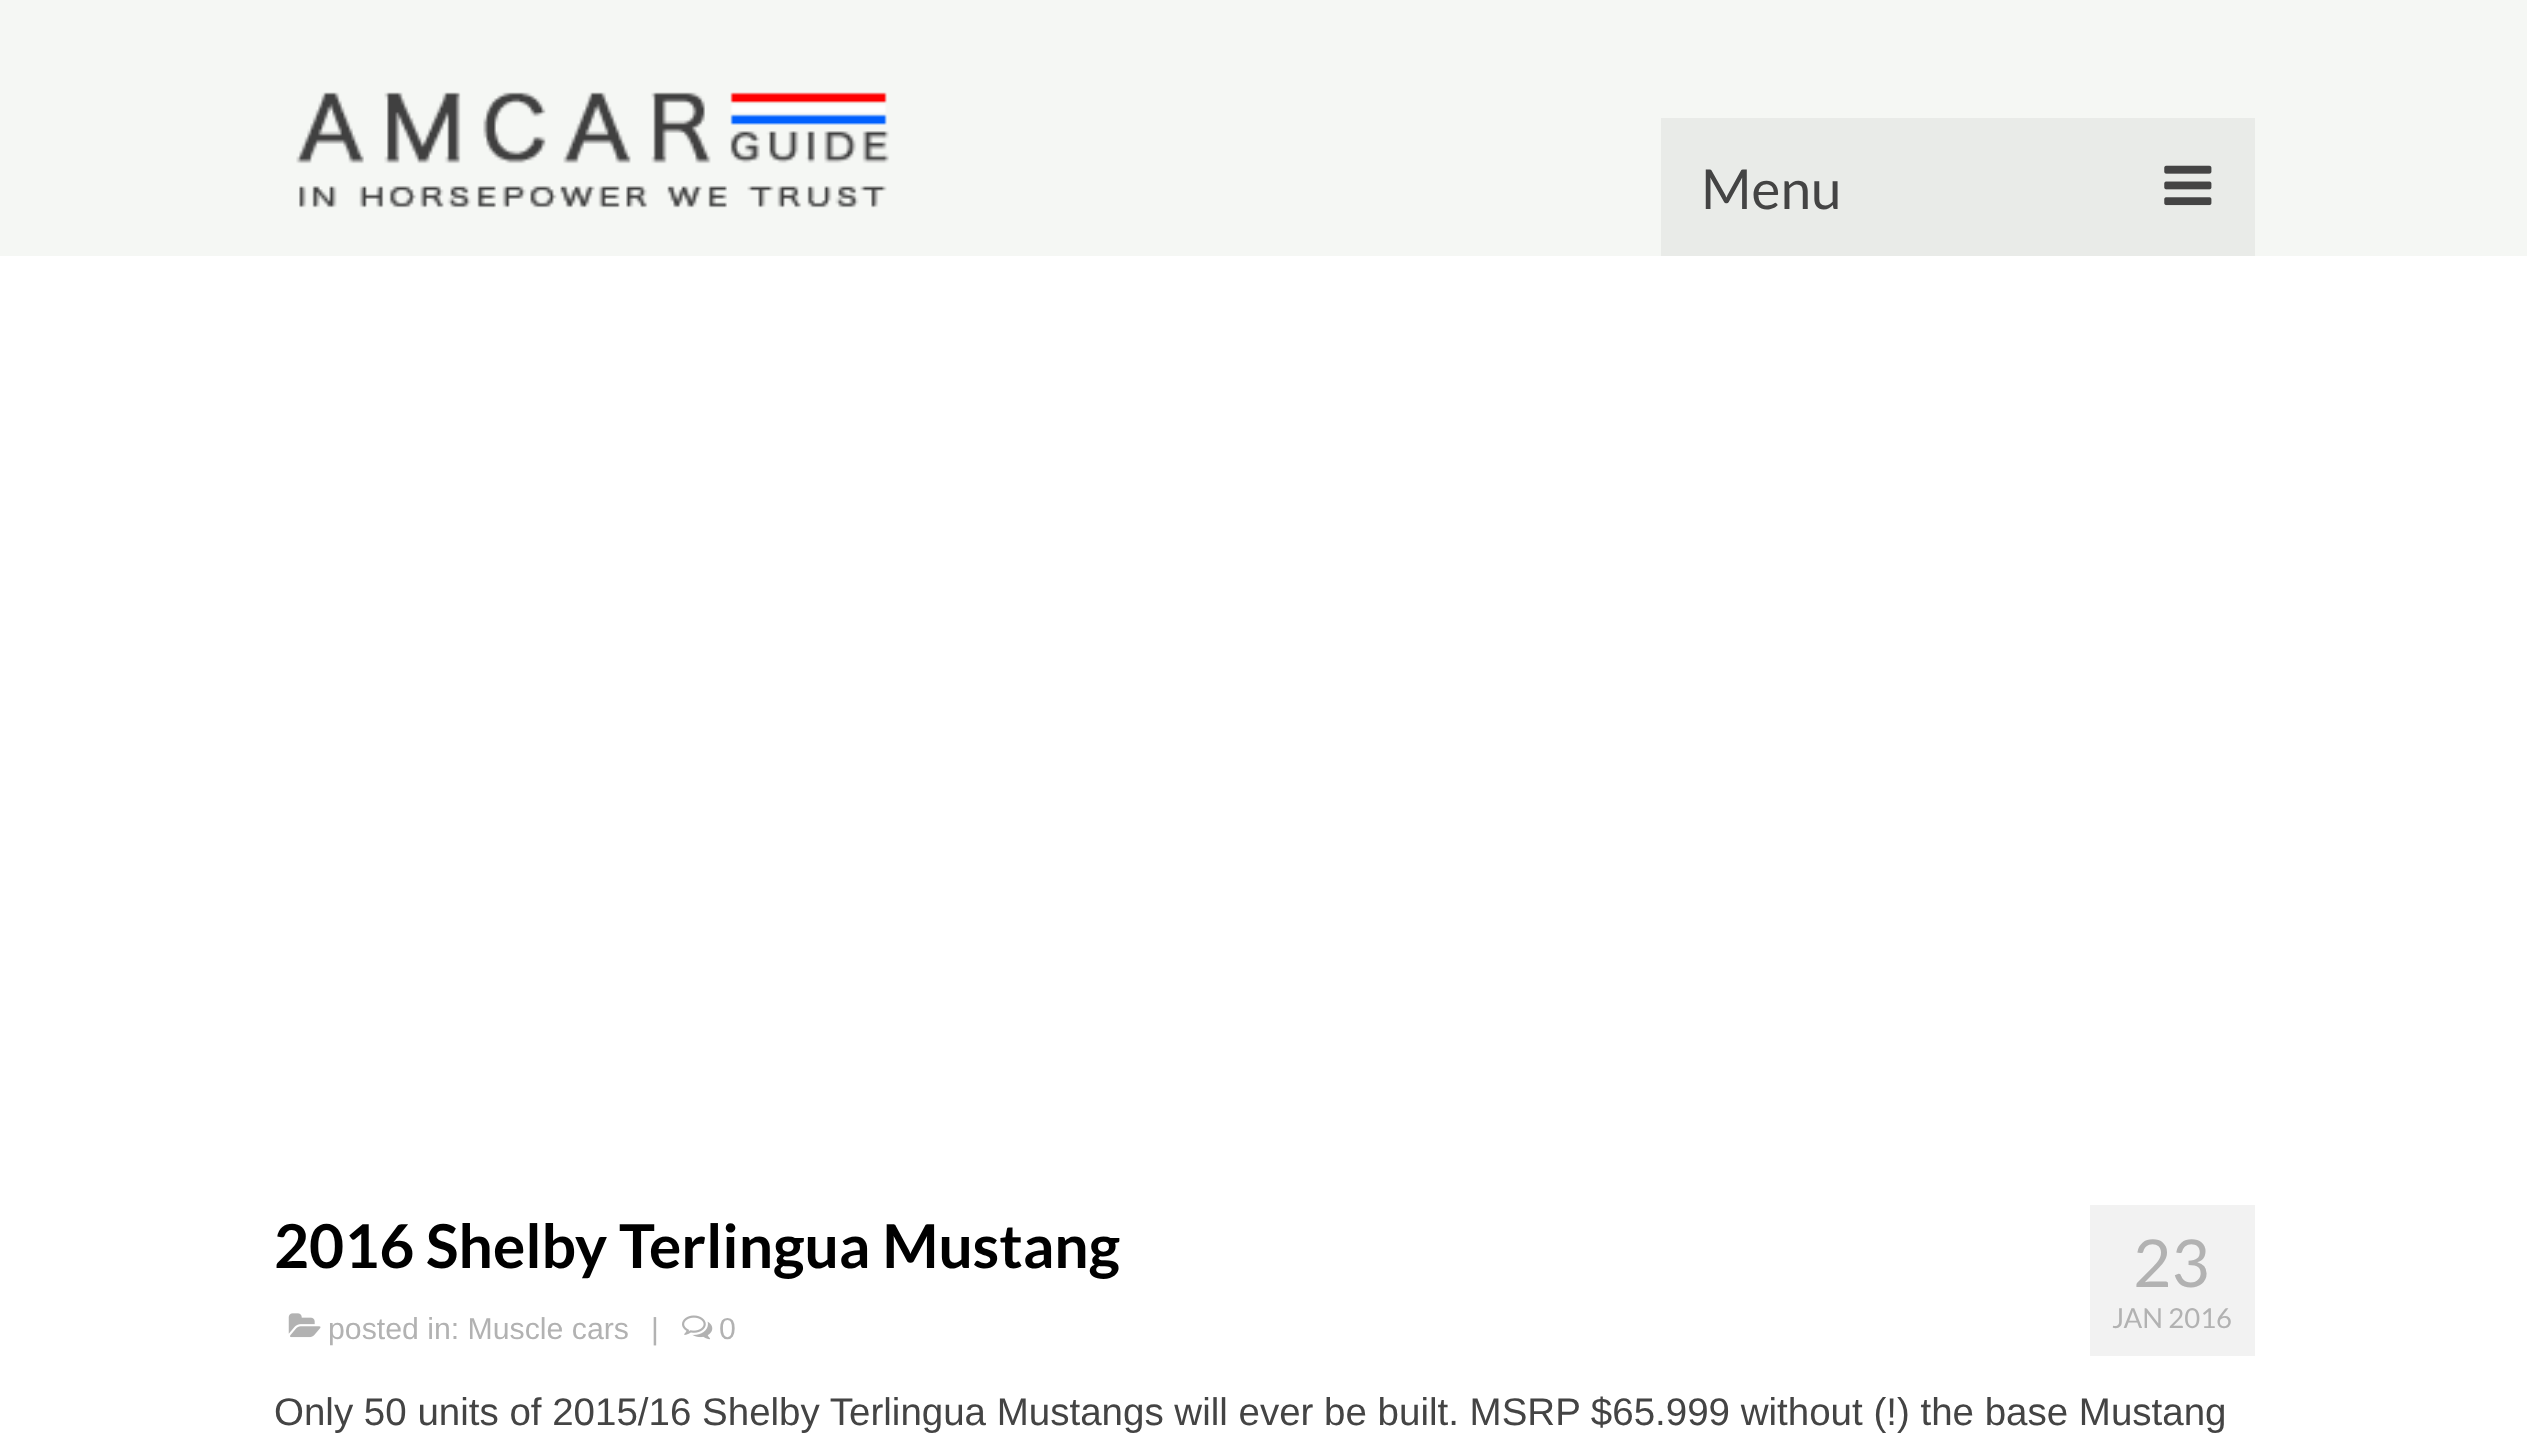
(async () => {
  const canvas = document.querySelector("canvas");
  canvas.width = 2527;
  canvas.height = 1450;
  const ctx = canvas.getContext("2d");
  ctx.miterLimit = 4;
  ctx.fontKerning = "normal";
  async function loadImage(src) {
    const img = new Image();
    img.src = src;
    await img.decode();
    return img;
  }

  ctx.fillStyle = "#f5f7f4";
  ctx.fillRect(0, 0, 2527, 1450);
  ctx.drawImage(await loadImage("img/1.png"), 296, 92, 594, 116);
  ctx.fillStyle = "#e9ebe8";
  ctx.fillRect(1661, 118, 594, 138);
  ctx.drawImage(await loadImage("img/2.png"), 2164, 165, 48, 41);
  ctx.fillStyle = "#ffffff";
  ctx.fillRect(0, 256, 2527, 1194);
  ctx.drawImage(await loadImage("img/3.png"), 288, 1313, 33, 25);
  ctx.drawImage(await loadImage("img/4.png"), 682, 1315, 31, 25);
  ctx.fillStyle = "#f2f2f2";
  ctx.fillRect(2090, 1205, 165, 151);
  ctx.font = "55px Lato";
  ctx.fillStyle = "#444444";
  ctx.fillText("Menu", 1701, 209);
  ctx.font = "bold 60.5px Lato";
  ctx.fillStyle = "#000000";
  ctx.fillText("2016 Shelby Terlingua Mustang", 274, 1268);
  ctx.font = "30.25px Liberation Sans";
  ctx.fillStyle = "#b2b2b2";
  for (const [text, x, y] of [
    ["posted in: Muscle cars", 328, 1339],
    ["|", 651, 1339],
    ["0", 719, 1339],
  ]) {
    ctx.fillText(text, x, y);
  }
  ctx.font = "66px Lato";
  ctx.fillText("23", 2133, 1287);
  ctx.font = "27.5px Lato";
  ctx.fillText("JAN 2016", 2112, 1328);
  ctx.font = "38.5px Liberation Sans";
  ctx.fillStyle = "#444444";
  ctx.fillText("Only 50 units of 2015/16 Shelby Terlingua Mustangs will ever be built. MSRP $65.999 without (!) the base Mustang", 274, 1425);
})();
